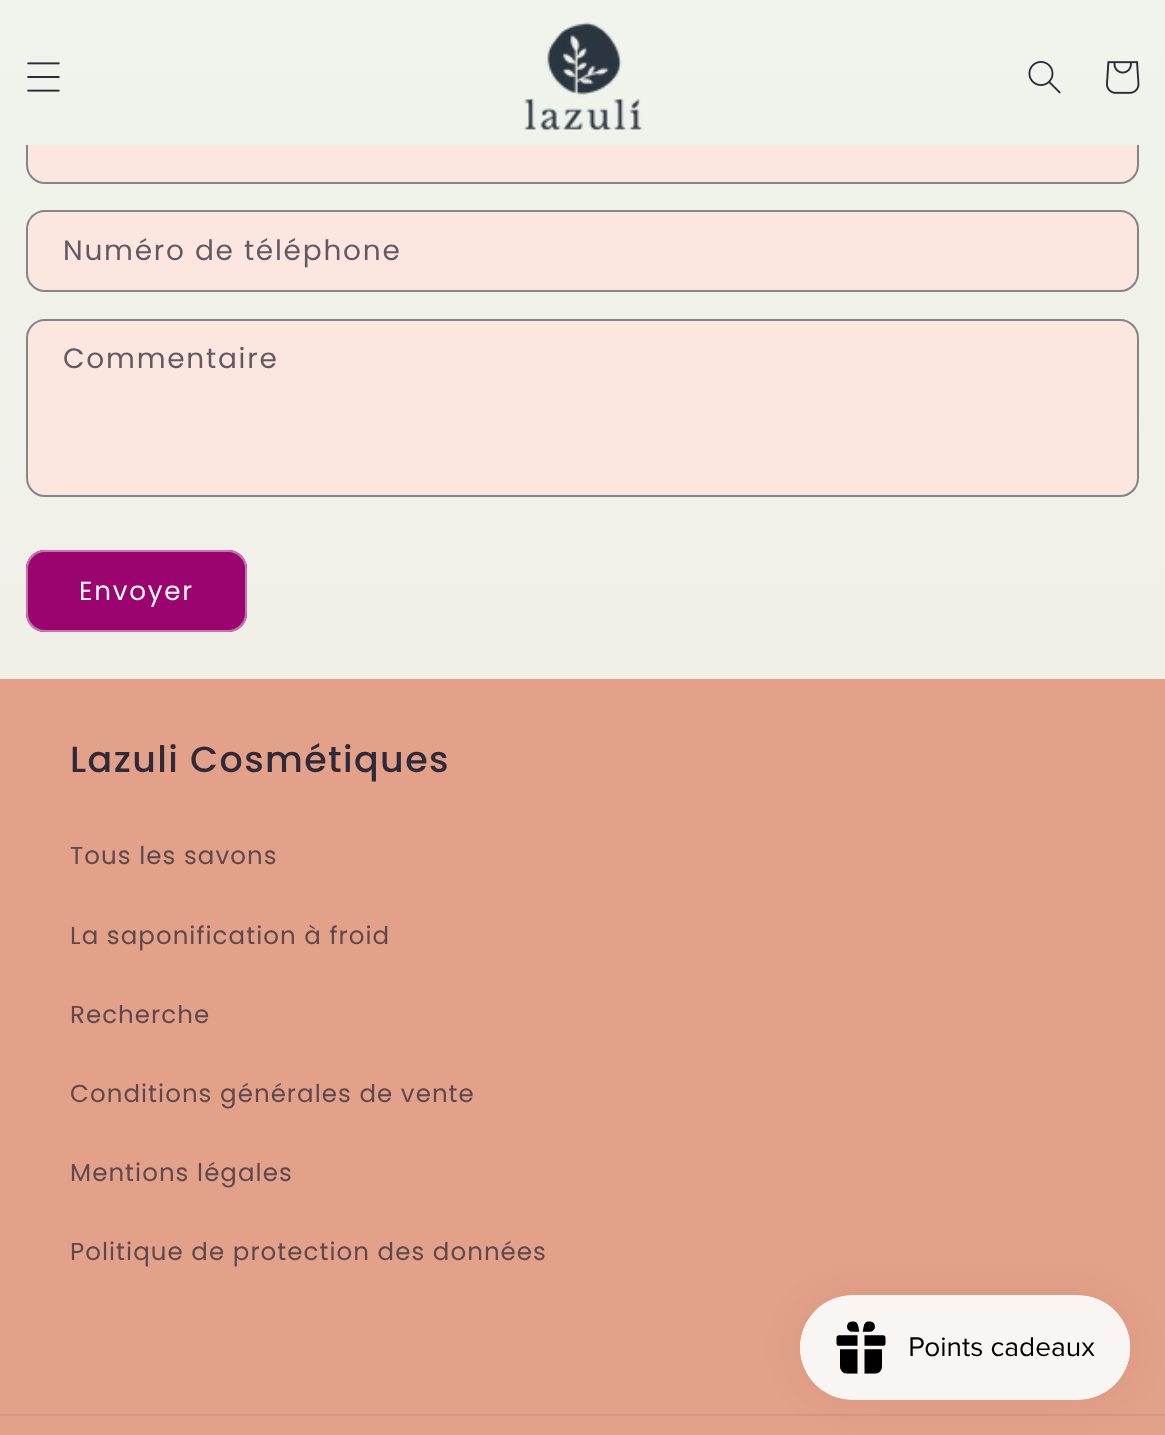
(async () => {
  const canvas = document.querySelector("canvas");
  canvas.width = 1165;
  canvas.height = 1435;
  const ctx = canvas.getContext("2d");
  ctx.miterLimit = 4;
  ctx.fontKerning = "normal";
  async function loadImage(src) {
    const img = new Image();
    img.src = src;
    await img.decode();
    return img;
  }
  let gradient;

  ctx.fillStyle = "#ffffff";
  ctx.fillRect(0, 0, 1165, 1435);
  gradient = ctx.createLinearGradient(583, 0, 583, 1435);
  gradient.addColorStop(0, "#f0f4ec");
  gradient.addColorStop(1, "#f1ebe2");
  ctx.fillStyle = gradient;
  ctx.fillRect(0, 145, 1165, 534);
  ctx.fillStyle = "#fce7e0";
  ctx.beginPath();
  ctx.roundRect(28, 103, 1110, 79, 18);
  ctx.fill();
  ctx.beginPath();
  ctx.roundRect(27, 103, 1111, 80, 18);
  ctx.strokeStyle = "rgba(46, 42, 57, 0.55)";
  ctx.lineWidth = 2;
  ctx.stroke();
  gradient = ctx.createLinearGradient(583, 0, 583, 1435);
  gradient.addColorStop(0, "#f0f4ec");
  gradient.addColorStop(1, "#f1ebe2");
  ctx.fillStyle = gradient;
  ctx.fillRect(0, 0, 1165, 145);
  ctx.drawImage(await loadImage("img/1.png"), 27, 62, 33, 30);
  ctx.drawImage(await loadImage("img/2.png"), 524, 22, 119, 109);
  ctx.drawImage(await loadImage("img/3.png"), 1028, 61, 33, 33);
  ctx.drawImage(await loadImage("img/4.png"), 1106, 61, 34, 33);
  ctx.fillStyle = "#fce7e0";
  ctx.beginPath();
  ctx.roundRect(28, 212, 1110, 79, 18);
  ctx.fill();
  ctx.beginPath();
  ctx.roundRect(27, 211, 1111, 80, 18);
  ctx.stroke();
  ctx.beginPath();
  ctx.roundRect(28, 320, 1110, 175, 18);
  ctx.fill();
  ctx.beginPath();
  ctx.roundRect(27, 320, 1111, 176, 18);
  ctx.stroke();
  ctx.fillStyle = "#9b046f";
  ctx.beginPath();
  ctx.roundRect(26, 550, 221, 82, 19);
  ctx.fill();
  ctx.beginPath();
  ctx.roundRect(27, 551, 219, 80, 18);
  ctx.strokeStyle = "#9b046f";
  ctx.stroke();
  ctx.beginPath();
  ctx.roundRect(27, 551, 219, 80, 18);
  ctx.strokeStyle = "rgba(253, 251, 247, 0.45)";
  ctx.stroke();
  ctx.fillStyle = "#e4a189";
  ctx.fillRect(0, 679, 1165, 756);
  ctx.fillStyle = "#d59783";
  ctx.fillRect(0, 1414, 1165, 2);
  ctx.fillStyle = "rgba(0, 0, 0, 0.05)";
  ctx.filter = "blur(22px)";
  ctx.beginPath();
  ctx.roundRect(800, 1295, 331, 105, 52.5);
  ctx.fill();
  ctx.filter = "none";
  ctx.drawImage(await loadImage("img/5.png"), 800, 1295, 331, 105);
  ctx.letterSpacing = "1.75px";
  ctx.font = "28px Poppins";
  ctx.fillStyle = "#625963";
  ctx.fillText("Numéro de téléphone", 63, 260);
  ctx.fillText("Commentaire", 63, 368);
  ctx.font = "26.25px Poppins";
  ctx.fillStyle = "#fdfbf7";
  ctx.fillText("Envoyer", 79, 600);
  ctx.letterSpacing = "1.4px";
  ctx.font = "500 36.4px Poppins";
  ctx.fillStyle = "#2e2a39";
  ctx.fillText("Lazuli Cosmétiques", 70, 772);
  ctx.letterSpacing = "1.05px";
  ctx.font = "24.5px Poppins";
  ctx.fillStyle = "#5c484d";
  for (const [text, x, y] of [
    ["Tous les savons", 70, 864],
    ["La saponification à froid", 70, 944],
    ["Recherche", 70, 1023],
    ["Conditions générales de vente", 70, 1102],
    ["Mentions légales", 70, 1181],
    ["Politique de protection des données", 70, 1260],
  ]) {
    ctx.fillText(text, x, y);
  }
})();
